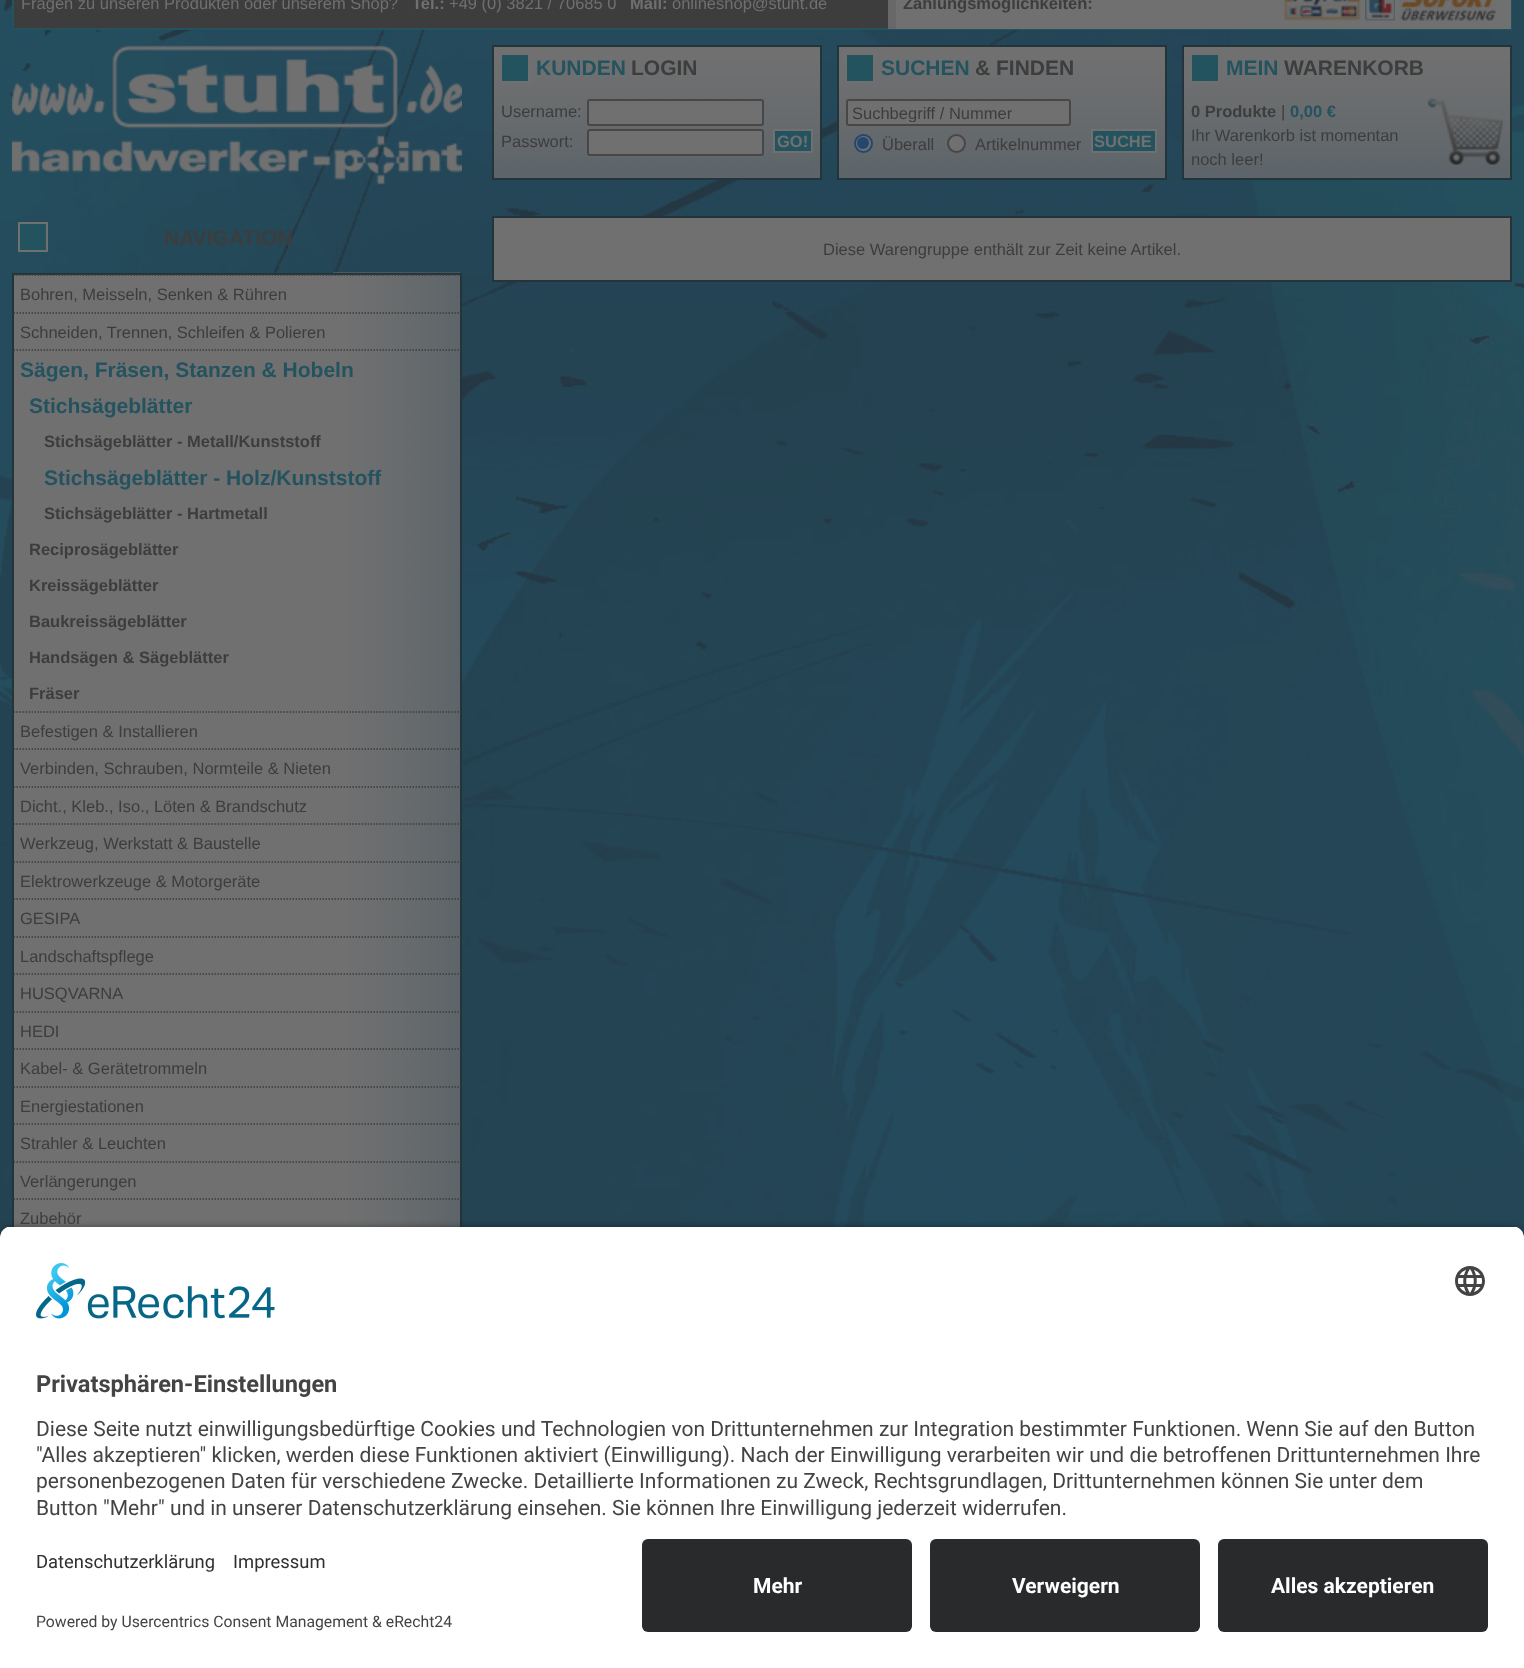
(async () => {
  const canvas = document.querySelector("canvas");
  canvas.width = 1524;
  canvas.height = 1668;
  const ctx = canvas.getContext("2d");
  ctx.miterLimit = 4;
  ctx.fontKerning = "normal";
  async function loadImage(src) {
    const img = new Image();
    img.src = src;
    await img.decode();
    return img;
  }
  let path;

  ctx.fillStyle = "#ffffff";
  ctx.fillRect(0, 0, 1524, 1668);
  ctx.drawImage(await loadImage("img/1.png"), 0, 0, 1524, 1238);
  ctx.fillStyle = "#3d3d3d";
  ctx.fillRect(14, 0, 874, 28);
  ctx.strokeStyle = "#245360";
  ctx.lineWidth = 2;
  ctx.strokeRect(13, -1, 1498, 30);
  ctx.fillStyle = "#707070";
  ctx.fillRect(896, 0, 615, 29);
  ctx.fillStyle = "#686868";
  ctx.fillRect(888, 0, 8, 29);
  ctx.drawImage(await loadImage("img/2.png"), 1284, 0, 77, 21);
  ctx.drawImage(await loadImage("img/3.png"), 1365, 0, 30, 21);
  ctx.drawImage(await loadImage("img/4.png"), 1399, 0, 97, 21);
  ctx.drawImage(await loadImage("img/5.png"), 12, 45, 450, 140);
  ctx.fillStyle = "#5d656a";
  ctx.fillRect(494, 167, 326, 11);
  ctx.drawImage(await loadImage("img/6.png"), 494, 47, 326, 120);
  ctx.strokeStyle = "#24343b";
  ctx.strokeRect(493, 46, 328, 133);
  ctx.fillStyle = "#245360";
  ctx.beginPath();
  ctx.rect(501, 54, 28, 28);
  ctx.fill();
  ctx.strokeStyle = "#707070";
  ctx.stroke();
  ctx.fillStyle = "#707070";
  ctx.beginPath();
  ctx.roundRect(588, 100, 175, 25, 2);
  ctx.fill();
  ctx.strokeStyle = "#474747";
  ctx.stroke();
  ctx.beginPath();
  ctx.roundRect(588, 130, 175, 25, 2);
  ctx.fill();
  ctx.stroke();
  ctx.fillStyle = "#245360";
  ctx.beginPath();
  ctx.rect(774, 130, 38, 22);
  ctx.fill();
  ctx.strokeStyle = "#707070";
  ctx.stroke();
  ctx.fillStyle = "#5d656a";
  ctx.fillRect(839, 167, 326, 11);
  ctx.drawImage(await loadImage("img/7.png"), 839, 47, 326, 120);
  ctx.strokeStyle = "#24343b";
  ctx.strokeRect(838, 46, 328, 133);
  ctx.fillStyle = "#245360";
  ctx.beginPath();
  ctx.rect(846, 54, 28, 28);
  ctx.fill();
  ctx.strokeStyle = "#707070";
  ctx.stroke();
  ctx.fillStyle = "#707070";
  ctx.beginPath();
  ctx.roundRect(847, 100, 223, 25, 2);
  ctx.fill();
  ctx.strokeStyle = "#474747";
  ctx.stroke();
  ctx.beginPath();
  ctx.arc(863.5, 143.5, 8.5, 0, Math.PI * 2);
  ctx.fill();
  ctx.strokeStyle = "#244770";
  ctx.stroke();
  ctx.fillStyle = "#244770";
  ctx.beginPath();
  ctx.arc(863, 143, 6, 0, Math.PI * 2);
  ctx.fill();
  ctx.fillStyle = "#707070";
  ctx.beginPath();
  ctx.arc(956.5, 143.5, 8.5, 0, Math.PI * 2);
  ctx.fill();
  ctx.strokeStyle = "#474747";
  ctx.stroke();
  ctx.fillStyle = "#245360";
  ctx.beginPath();
  ctx.rect(1092, 130, 64, 22);
  ctx.fill();
  ctx.strokeStyle = "#707070";
  ctx.stroke();
  ctx.fillStyle = "#5d656a";
  ctx.fillRect(1184, 167, 326, 11);
  ctx.drawImage(await loadImage("img/8.png"), 1184, 47, 326, 120);
  ctx.strokeStyle = "#24343b";
  ctx.strokeRect(1183, 46, 328, 133);
  ctx.fillStyle = "#245360";
  ctx.beginPath();
  ctx.rect(1191, 54, 28, 28);
  ctx.fill();
  ctx.strokeStyle = "#707070";
  ctx.stroke();
  ctx.drawImage(await loadImage("img/9.png"), 1428, 98, 75, 67);
  ctx.beginPath();
  ctx.rect(19, 223, 28, 28);
  ctx.fill();
  ctx.stroke();
  ctx.fillStyle = "#707070";
  ctx.fillRect(14, 275, 319, 952);
  ctx.drawImage(await loadImage("img/10.png"), 333, 272, 128, 955);
  ctx.strokeStyle = "#24343b";
  ctx.strokeRect(13, 274, 448, 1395);
  path = new Path2D("M13.5 275H460.5");
  ctx.strokeStyle = "#3d3d3d";
  ctx.lineWidth = 1.5;
  ctx.setLineDash([1.5, 1.5]);
  ctx.stroke(path);
  path = new Path2D("M13.5 313H460.5");
  ctx.stroke(path);
  path = new Path2D("M13.5 350H460.5");
  ctx.stroke(path);
  path = new Path2D("M13.5 712H460.5");
  ctx.stroke(path);
  path = new Path2D("M13.5 749H460.5");
  ctx.stroke(path);
  path = new Path2D("M13.5 787H460.5");
  ctx.stroke(path);
  path = new Path2D("M13.5 824H460.5");
  ctx.stroke(path);
  path = new Path2D("M13.5 862H460.5");
  ctx.stroke(path);
  path = new Path2D("M13.5 899H460.5");
  ctx.stroke(path);
  path = new Path2D("M13.5 937H460.5");
  ctx.stroke(path);
  path = new Path2D("M13.5 974H460.5");
  ctx.stroke(path);
  path = new Path2D("M13.5 1012H460.5");
  ctx.stroke(path);
  path = new Path2D("M13.5 1049H460.5");
  ctx.stroke(path);
  path = new Path2D("M13.5 1087H460.5");
  ctx.stroke(path);
  path = new Path2D("M13.5 1124H460.5");
  ctx.stroke(path);
  path = new Path2D("M13.5 1162H460.5");
  ctx.stroke(path);
  path = new Path2D("M13.5 1199H460.5");
  ctx.stroke(path);
  ctx.beginPath();
  ctx.rect(493, 217, 1018, 64);
  ctx.fill();
  ctx.strokeStyle = "#24343b";
  ctx.lineWidth = 2;
  ctx.setLineDash([]);
  ctx.stroke();
  ctx.fillStyle = "rgba(0, 0, 0, 0.8)";
  ctx.filter = "blur(5px)";
  ctx.beginPath();
  ctx.roundRect(0, 1230, 1524, 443, 12);
  ctx.fill();
  ctx.filter = "none";
  ctx.save();
  ctx.beginPath();
  ctx.roundRect(0, 1226, 1524, 301, [12, 12, 0, 0]);
  ctx.clip();
  ctx.fillStyle = "#ffffff";
  ctx.fillRect(0, 1227, 1524, 300);
  ctx.restore();
  ctx.drawImage(await loadImage("img/11.png"), 36, 1263, 239, 56);
  ctx.drawImage(await loadImage("img/12.png"), 1455, 1266, 30, 30);
  ctx.fillStyle = "#ffffff";
  ctx.fillRect(0, 1527, 1524, 141);
  ctx.fillStyle = "#292a2b";
  ctx.beginPath();
  ctx.roundRect(642, 1539, 270, 93, 6);
  ctx.fill();
  ctx.beginPath();
  ctx.roundRect(930, 1539, 270, 93, 6);
  ctx.fill();
  ctx.beginPath();
  ctx.roundRect(1218, 1539, 270, 93, 6);
  ctx.fill();
  ctx.font = "16.5px Liberation Sans";
  ctx.fillStyle = "#707070";
  ctx.fillText("Fragen zu unseren Produkten oder unserem Shop?", 21, 9);
  ctx.font = "bold 16.5px Liberation Sans";
  ctx.fillText("Tel.:", 412, 9);
  ctx.font = "16.5px Liberation Sans";
  ctx.fillText("+49 (0) 3821 / 70685 0", 449, 9);
  ctx.font = "bold 16.5px Liberation Sans";
  ctx.fillText("Mail:", 630, 9);
  ctx.font = "16.5px Liberation Sans";
  ctx.fillText("onlineshop@stuht.de", 672, 9);
  ctx.font = "bold 16.5px Liberation Sans";
  ctx.fillStyle = "#3d3d3d";
  ctx.fillText("Zahlungsmöglichkeiten:", 903, 9);
  ctx.font = "bold 21px Liberation Sans";
  ctx.fillStyle = "#245360";
  ctx.fillText("KUNDEN", 536, 75);
  ctx.fillStyle = "#3d3d3d";
  ctx.fillText("LOGIN", 631, 75);
  ctx.font = "16.5px Liberation Sans";
  ctx.fillText("Username:", 501, 117);
  ctx.fillText("Passwort:", 501, 147);
  ctx.font = "bold 16.5px Liberation Sans";
  ctx.fillStyle = "#707070";
  ctx.fillText("GO!", 777, 147);
  ctx.font = "bold 21px Liberation Sans";
  ctx.fillStyle = "#245360";
  ctx.fillText("SUCHEN", 881, 75);
  ctx.fillStyle = "#3d3d3d";
  ctx.fillText("& FINDEN", 975, 75);
  ctx.save();
  ctx.beginPath();
  ctx.rect(852, 104, 213, 18);
  ctx.clip();
  ctx.font = "16.5px Liberation Sans";
  ctx.fillText("Suchbegriff / Nummer", 852, 119);
  ctx.restore();
  ctx.font = "16.5px Liberation Sans";
  ctx.fillText("Überall", 882, 150);
  ctx.fillText("Artikelnummer", 975, 150);
  ctx.font = "bold 16.5px Liberation Sans";
  ctx.fillStyle = "#707070";
  ctx.fillText("SUCHE", 1094, 147);
  ctx.font = "bold 21px Liberation Sans";
  ctx.fillStyle = "#245360";
  ctx.fillText("MEIN", 1226, 75);
  ctx.fillStyle = "#3d3d3d";
  ctx.fillText("WARENKORB", 1284, 75);
  ctx.font = "bold 16.5px Liberation Sans";
  ctx.fillText("0 Produkte", 1191, 117);
  ctx.font = "16.5px Liberation Sans";
  ctx.fillText("|", 1281, 117);
  ctx.font = "bold 16.5px Liberation Sans";
  ctx.fillStyle = "#245360";
  ctx.fillText("0,00 €", 1290, 117);
  ctx.font = "16.5px Liberation Sans";
  ctx.fillStyle = "#3d3d3d";
  ctx.fillText("Ihr Warenkorb ist momentan", 1191, 141);
  ctx.fillText("noch leer!", 1191, 165);
  ctx.font = "bold 21px Liberation Sans";
  ctx.fillText("NAVIGATION", 164, 245);
  ctx.font = "16.5px Liberation Sans";
  ctx.fillText("Bohren, Meisseln, Senken & Rühren", 20, 300);
  ctx.fillText("Schneiden, Trennen, Schleifen & Polieren", 20, 338);
  ctx.font = "bold 21px Liberation Sans";
  ctx.fillStyle = "#245360";
  ctx.fillText("Sägen, Fräsen, Stanzen & Hobeln", 20, 377);
  ctx.fillText("Stichsägeblätter", 29, 413);
  ctx.font = "bold 16.5px Liberation Sans";
  ctx.fillStyle = "#3d3d3d";
  ctx.fillText("Stichsägeblätter - Metall/Kunststoff", 44, 447);
  ctx.font = "bold 21px Liberation Sans";
  ctx.fillStyle = "#245360";
  ctx.fillText("Stichsägeblätter - Holz/Kunststoff", 44, 485);
  ctx.font = "bold 16.5px Liberation Sans";
  ctx.fillStyle = "#3d3d3d";
  for (const [text, x, y] of [
    ["Stichsägeblätter - Hartmetall", 44, 519],
    ["Reciprosägeblätter", 29, 555],
    ["Kreissägeblätter", 29, 591],
    ["Baukreissägeblätter", 29, 627],
    ["Handsägen & Sägeblätter", 29, 663],
    ["Fräser", 29, 699],
  ]) {
    ctx.fillText(text, x, y);
  }
  ctx.font = "16.5px Liberation Sans";
  for (const [text, x, y] of [
    ["Befestigen & Installieren", 20, 737],
    ["Verbinden, Schrauben, Normteile & Nieten", 20, 774],
    ["Dicht., Kleb., Iso., Löten & Brandschutz", 20, 812],
    ["Werkzeug, Werkstatt & Baustelle", 20, 849],
    ["Elektrowerkzeuge & Motorgeräte", 20, 887],
    ["GESIPA", 20, 924],
    ["Landschaftspflege", 20, 962],
    ["HUSQVARNA", 20, 999],
    ["HEDI", 20, 1037],
    ["Kabel- & Gerätetrommeln", 20, 1074],
    ["Energiestationen", 20, 1112],
    ["Strahler & Leuchten", 20, 1149],
    ["Verlängerungen", 20, 1187],
    ["Zubehör", 20, 1224],
    ["Diese Warengruppe enthält zur Zeit keine Artikel.", 823, 255],
  ]) {
    ctx.fillText(text, x, y);
  }
  ctx.font = "bold 23.6px Roboto";
  ctx.fillStyle = "#444444";
  ctx.fillText("Privatsphären-Einstellungen", 36, 1392);
  ctx.font = "21px Roboto";
  for (const [text, x, y] of [
    ["Diese Seite nutzt einwilligungsbedürftige Cookies und Technologien von Drittunternehmen zur Integration bestimmter Funktionen. Wenn Sie auf den Button", 36, 1436],
    ["\"Alles akzeptieren\" klicken, werden diese Funktionen aktiviert (Einwilligung). Nach der Einwilligung verarbeiten wir und die betroffenen Drittunternehmen Ihre", 36, 1462],
    ["personenbezogenen Daten für verschiedene Zwecke. Detaillierte Informationen zu Zweck, Rechtsgrundlagen, Drittunternehmen können Sie unter dem", 36, 1488],
    ["Button \"Mehr\" und in unserer Datenschutzerklärung einsehen. Sie können Ihre Einwilligung jederzeit widerrufen.", 36, 1515],
  ]) {
    ctx.fillText(text, x, y);
  }
  ctx.font = "18.4px Roboto";
  ctx.fillStyle = "#303030";
  ctx.fillText("Datenschutzerklärung", 36, 1568);
  ctx.fillText("Impressum", 233, 1568);
  ctx.font = "15.75px Roboto";
  ctx.fillStyle = "#444444";
  ctx.fillText("Powered by Usercentrics Consent Management & eRecht24", 36, 1627);
  ctx.font = "bold 21px Roboto";
  ctx.fillStyle = "#ffffff";
  for (const [text, x, y] of [
    ["Mehr", 753, 1593],
    ["Verweigern", 1012, 1593],
    ["Alles akzeptieren", 1271, 1593],
  ]) {
    ctx.fillText(text, x, y);
  }
})();
